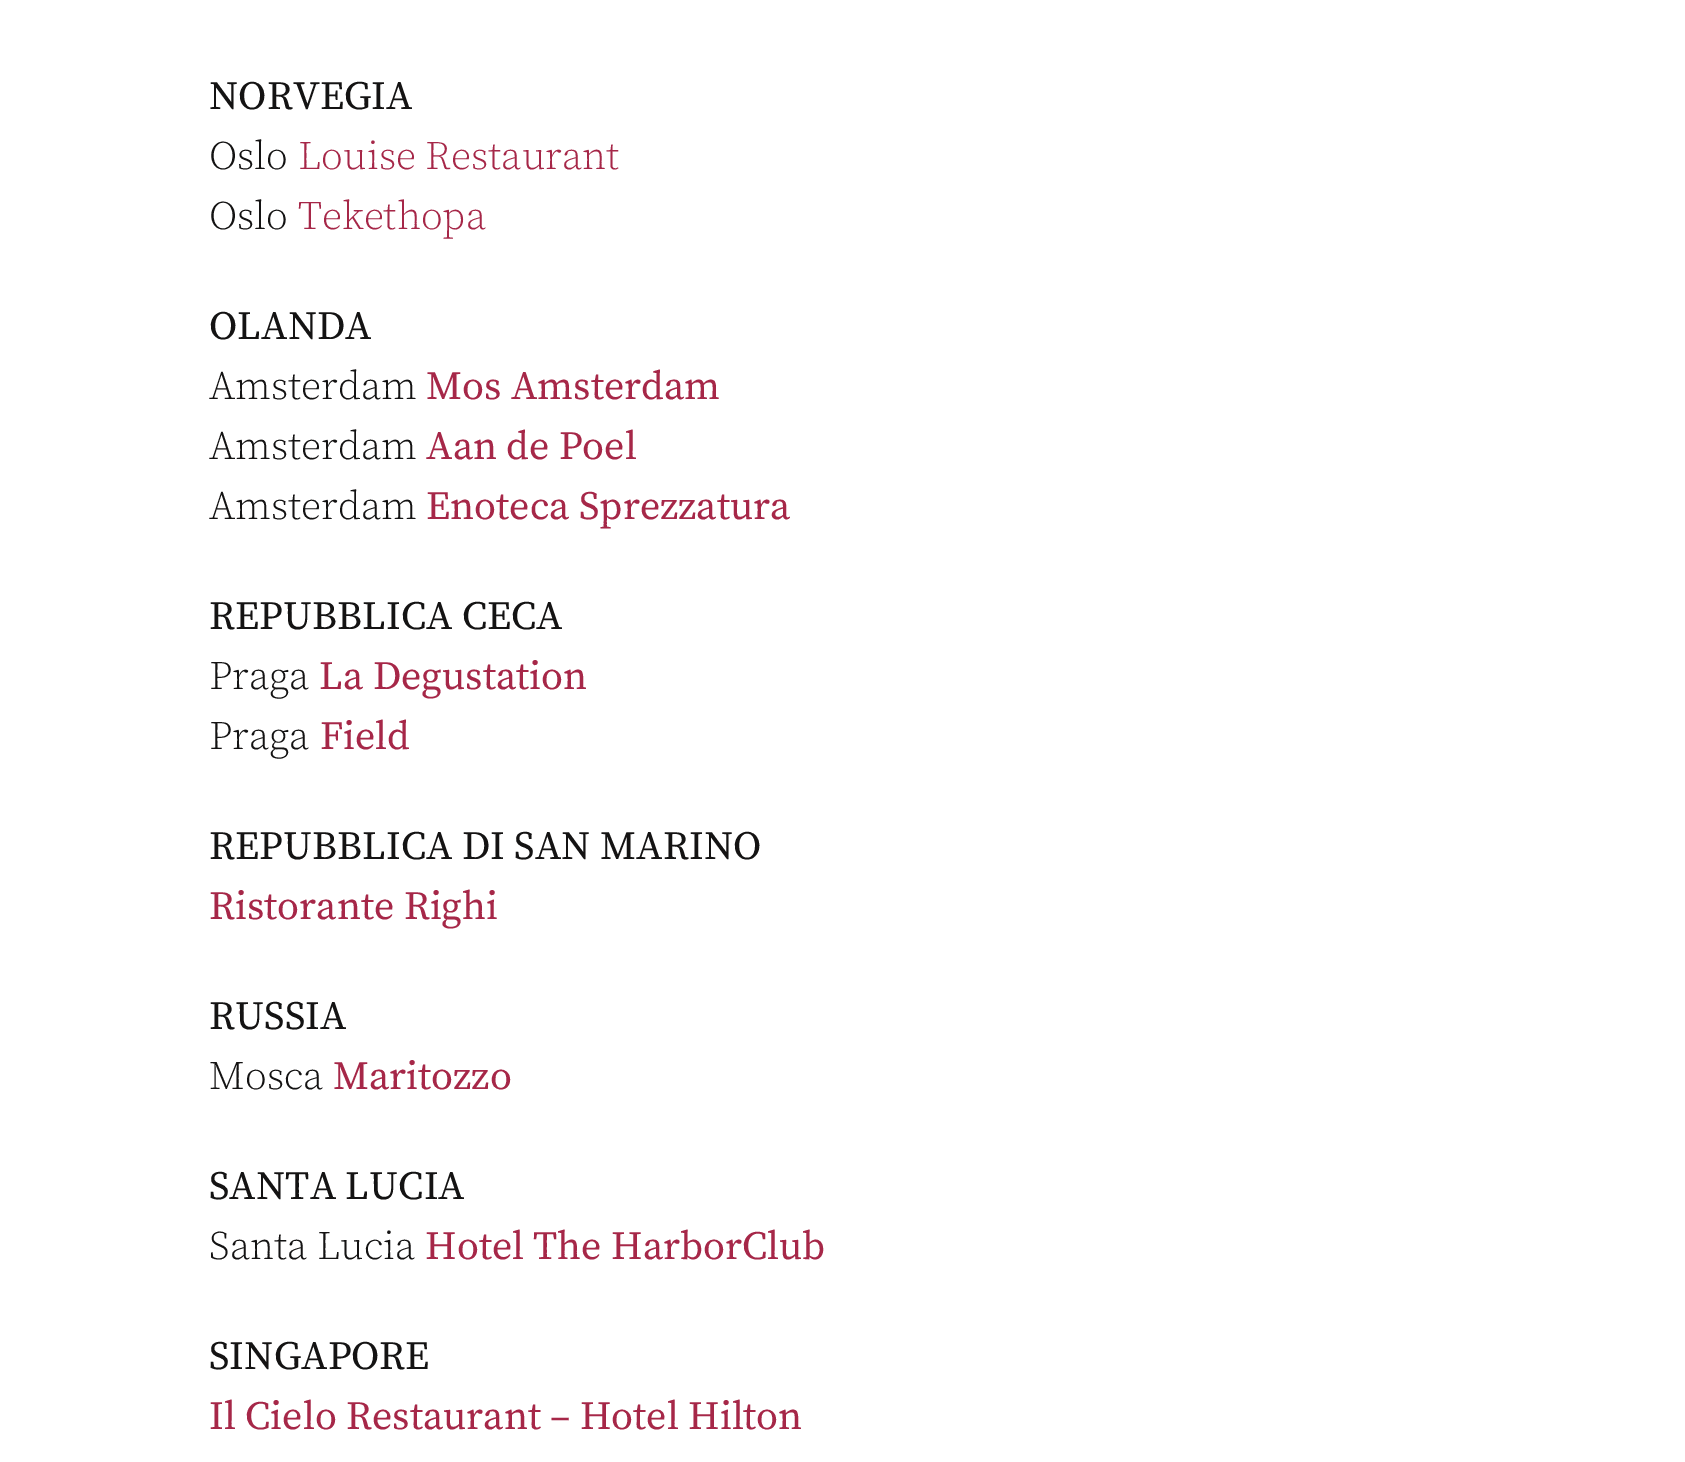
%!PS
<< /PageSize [1685 1462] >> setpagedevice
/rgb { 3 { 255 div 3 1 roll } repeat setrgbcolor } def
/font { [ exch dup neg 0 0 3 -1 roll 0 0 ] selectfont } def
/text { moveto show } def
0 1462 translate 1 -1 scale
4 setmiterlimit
255 255 255 rgb
0 0 1685 1462 rectfill
/SourceSerifPro-Regular 40 font
20 19 19 rgb
(NORVEGIA) 209 109 text
/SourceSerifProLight-Light 40 font
(Oslo) 209 169 text
166 39 72 rgb
(Louise Restaurant) 298 169 text
20 19 19 rgb
(Oslo) 209 229 text
166 39 72 rgb
(Tekethopa) 298 229 text
/SourceSerifPro-Regular 40 font
20 19 19 rgb
(OLANDA) 209 339 text
/SourceSerifProLight-Light 40 font
(Amsterdam) 209 399 text
/SourceSerifPro-Regular 40 font
166 39 72 rgb
(Mos Amsterdam) 426 399 text
/SourceSerifProLight-Light 40 font
20 19 19 rgb
(Amsterdam) 209 459 text
/SourceSerifPro-Regular 40 font
166 39 72 rgb
(Aan de Poel) 426 459 text
/SourceSerifProLight-Light 40 font
20 19 19 rgb
(Amsterdam) 209 519 text
/SourceSerifPro-Regular 40 font
166 39 72 rgb
(Enoteca Sprezzatura) 426 519 text
20 19 19 rgb
(REPUBBLICA CECA) 209 629 text
/SourceSerifProLight-Light 40 font
(Praga) 209 689 text
/SourceSerifPro-Regular 40 font
166 39 72 rgb
(La Degustation) 319 689 text
/SourceSerifProLight-Light 40 font
20 19 19 rgb
(Praga) 209 749 text
/SourceSerifPro-Regular 40 font
166 39 72 rgb
(Field) 320 749 text
20 19 19 rgb
(REPUBBLICA DI SAN MARINO) 209 859 text
166 39 72 rgb
(Ristorante Righi) 209 919 text
20 19 19 rgb
(RUSSIA) 209 1029 text
/SourceSerifProLight-Light 40 font
(Mosca) 209 1089 text
/SourceSerifPro-Regular 40 font
166 39 72 rgb
(Maritozzo) 333 1089 text
20 19 19 rgb
(SANTA LUCIA) 209 1199 text
/SourceSerifProLight-Light 40 font
(Santa Lucia) 209 1259 text
/SourceSerifPro-Regular 40 font
166 39 72 rgb
(Hotel The HarborClub) 425 1259 text
20 19 19 rgb
(SINGAPORE) 209 1369 text
166 39 72 rgb
(Il Cielo Restaurant – Hotel Hilton) 209 1429 text
showpage
